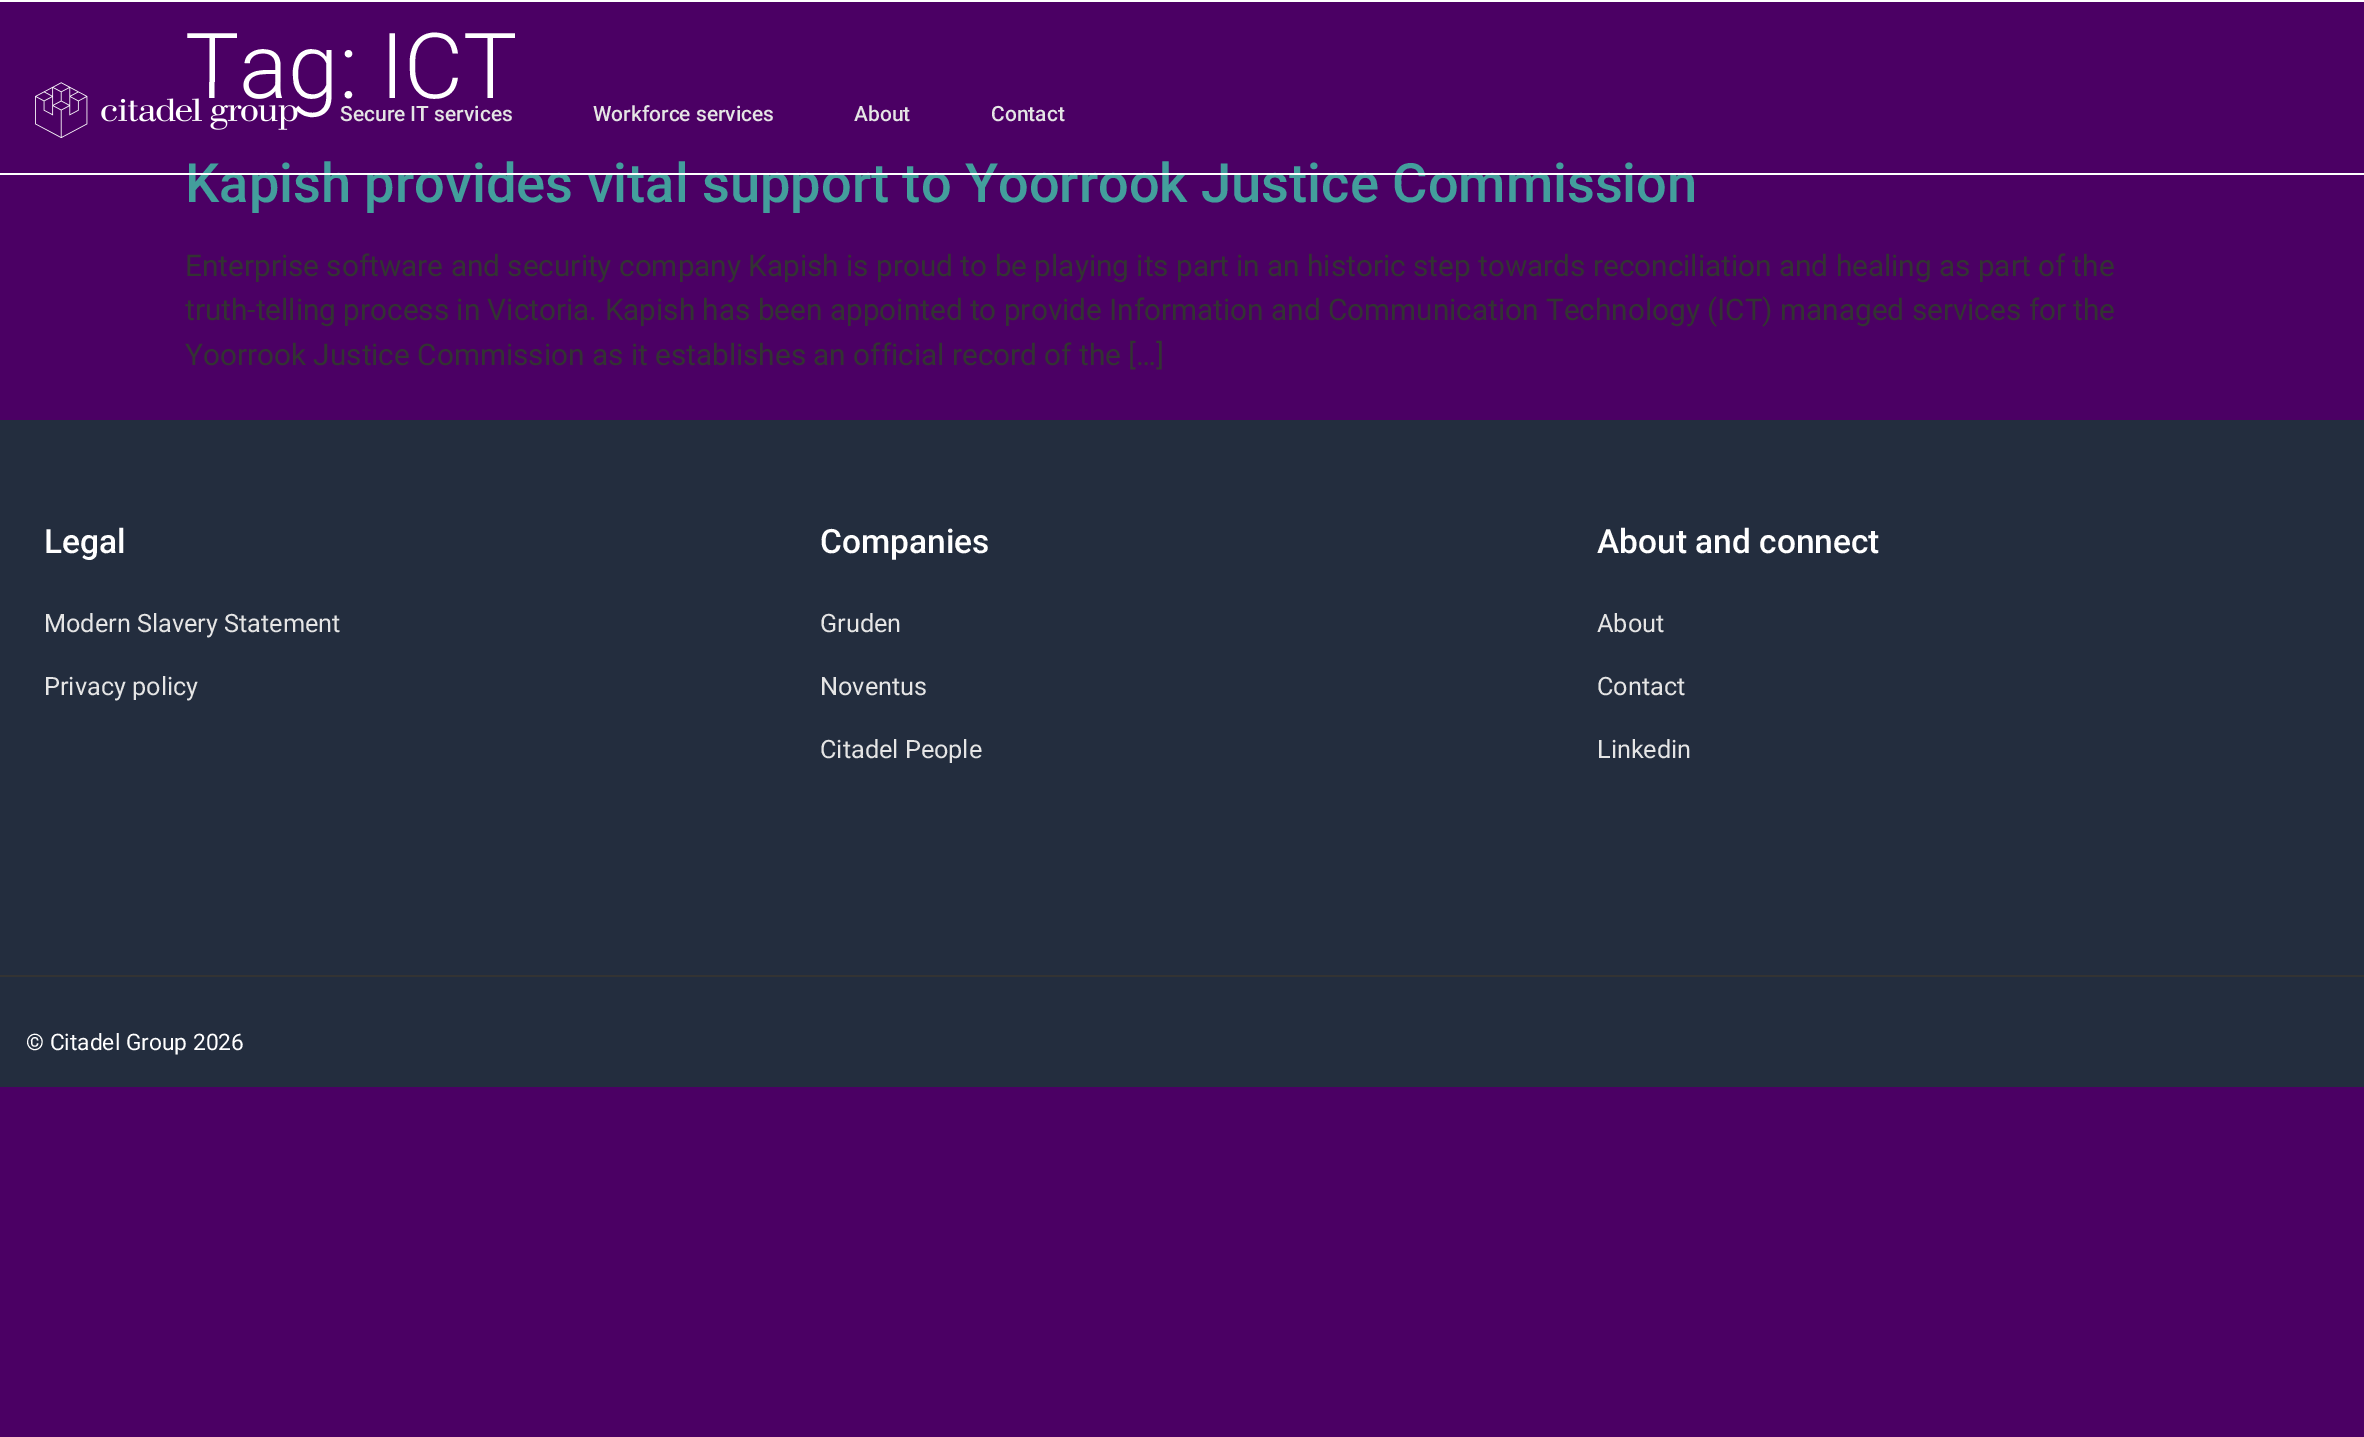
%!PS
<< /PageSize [2364 1437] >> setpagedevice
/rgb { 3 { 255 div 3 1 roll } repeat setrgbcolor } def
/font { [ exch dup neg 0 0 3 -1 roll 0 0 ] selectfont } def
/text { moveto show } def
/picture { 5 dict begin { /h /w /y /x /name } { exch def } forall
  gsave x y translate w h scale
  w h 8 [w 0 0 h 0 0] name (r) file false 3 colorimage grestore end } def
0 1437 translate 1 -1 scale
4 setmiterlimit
75 0 100 rgb
0 0 2364 1437 rectfill
255 255 255 rgb
0 0 2364 2 rectfill
35 45 62 rgb
0 420 2364 555 rectfill
0 977 2364 110 rectfill
51 51 51 rgb
0 975 2364 2 rectfill
/Roboto-Light 91 font
255 255 255 rgb
(Tag: ICT) 185 98 text
/Roboto-Medium 54.25 font
67 158 156 rgb
(Kapish provides vital support to Yoorrook Justice Commission) 185 202 text
/Roboto-Regular 29.75 font
51 51 51 rgb
(Enterprise software and security company Kapish is proud to be playing its part in an historic step towards reconciliation and healing as part of the) 185 276 text
(truth-telling process in Victoria. Kapish has been appointed to provide Information and Communication Technology \(ICT\) managed services for the) 185 320 text
(Yoorrook Justice Commission as it establishes an official record of the […]) 185 365 text
255 255 255 rgb
0 173 2364 2 rectfill
(img_01.rgb) 35 82 263 56 picture
/Roboto-Medium 21 font
229 229 229 rgb
(Secure IT services) 340 121 text
(Workforce services) 593 121 text
(About) 854 121 text
(Contact) 991 121 text
/Roboto-Medium 33.5 font
255 255 255 rgb
(Legal) 44 553 text
/Roboto-Regular 25.25 font
229 229 229 rgb
(Modern Slavery Statement) 44 632 text
(Privacy policy) 44 695 text
/Roboto-Medium 33.5 font
255 255 255 rgb
(Companies) 820 553 text
/Roboto-Regular 25.25 font
229 229 229 rgb
(Gruden) 820 632 text
(Noventus) 820 695 text
(Citadel People) 820 758 text
/Roboto-Medium 33.5 font
255 255 255 rgb
(About and connect) 1597 553 text
/Roboto-Regular 25.25 font
229 229 229 rgb
(About) 1597 632 text
(Contact) 1597 695 text
(Linkedin) 1597 758 text
/Roboto-Regular 22.75 font
255 255 255 rgb
(© Citadel Group 2026) 26 1050 text
showpage
